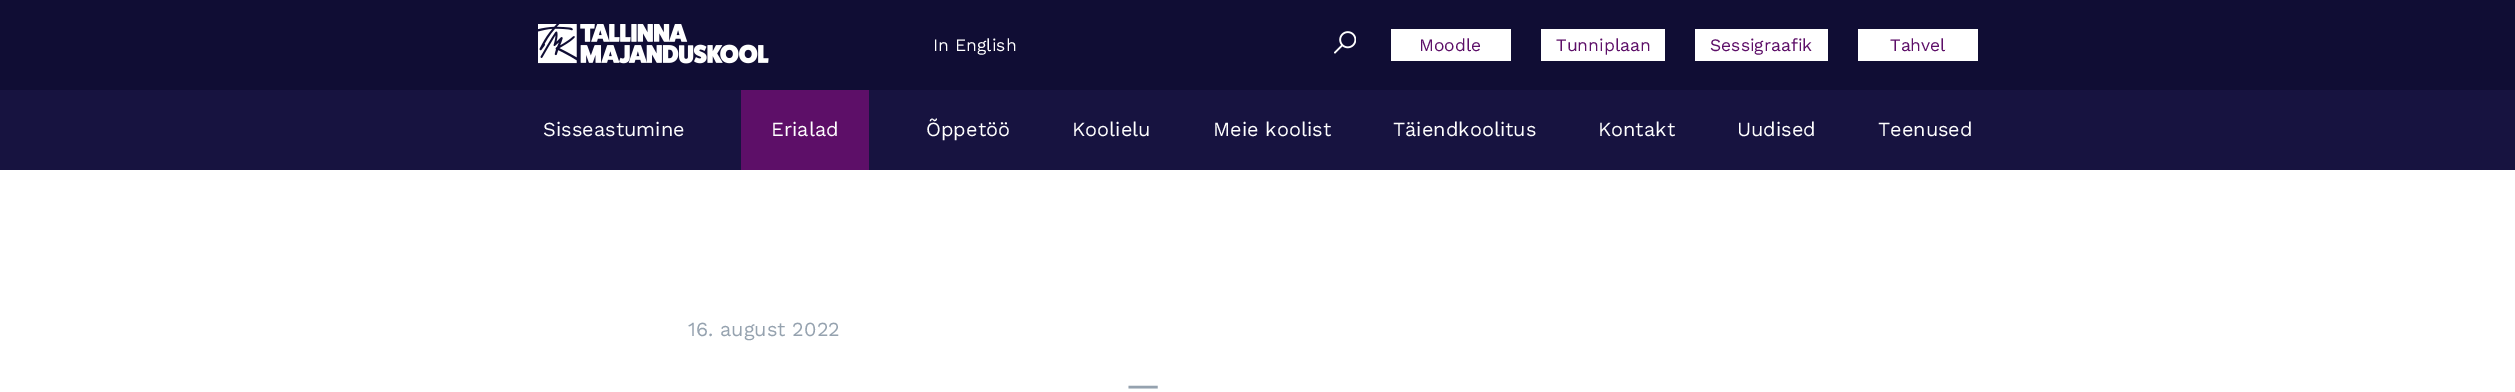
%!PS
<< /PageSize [2515 392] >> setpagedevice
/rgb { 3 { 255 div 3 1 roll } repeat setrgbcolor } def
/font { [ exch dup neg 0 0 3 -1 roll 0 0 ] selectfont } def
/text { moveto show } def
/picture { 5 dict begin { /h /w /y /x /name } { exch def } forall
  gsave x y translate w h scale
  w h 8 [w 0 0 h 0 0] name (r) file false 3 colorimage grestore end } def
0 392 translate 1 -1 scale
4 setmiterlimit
255 255 255 rgb
0 0 2515 392 rectfill
16 13 52 rgb
0 0 2515 90 rectfill
(img_01.rgb) 538 24 231 40 picture
(img_02.rgb) 1334 31 22 23 picture
255 255 255 rgb
1391 29 120 32 rectfill
1541 29 124 32 rectfill
1695 29 133 32 rectfill
1858 29 120 32 rectfill
23 19 64 rgb
0 90 2515 80 rectfill
93 15 104 rgb
741 90 128 80 rectfill
/WorkSans-Regular 17.5 font
255 255 255 rgb
(In English) 933 51 text
93 15 104 rgb
(Moodle) 1419 51 text
(Tunniplaan) 1556 51 text
(Sessigraafik) 1710 51 text
(Tahvel) 1890 51 text
/WorkSans-Regular 20 font
255 255 255 rgb
(Sisseastumine) 543 136 text
(Erialad) 771 136 text
(Õppetöö) 926 136 text
(Koolielu) 1072 136 text
(Meie koolist) 1213 136 text
(Täiendkoolitus) 1393 136 text
(Kontakt) 1598 136 text
(Uudised) 1737 136 text
(Teenused) 1878 136 text
149 162 175 rgb
(16. august 2022) 688 336 text
/WorkSans-Light 60 font
(–) 1124 403 text
showpage
